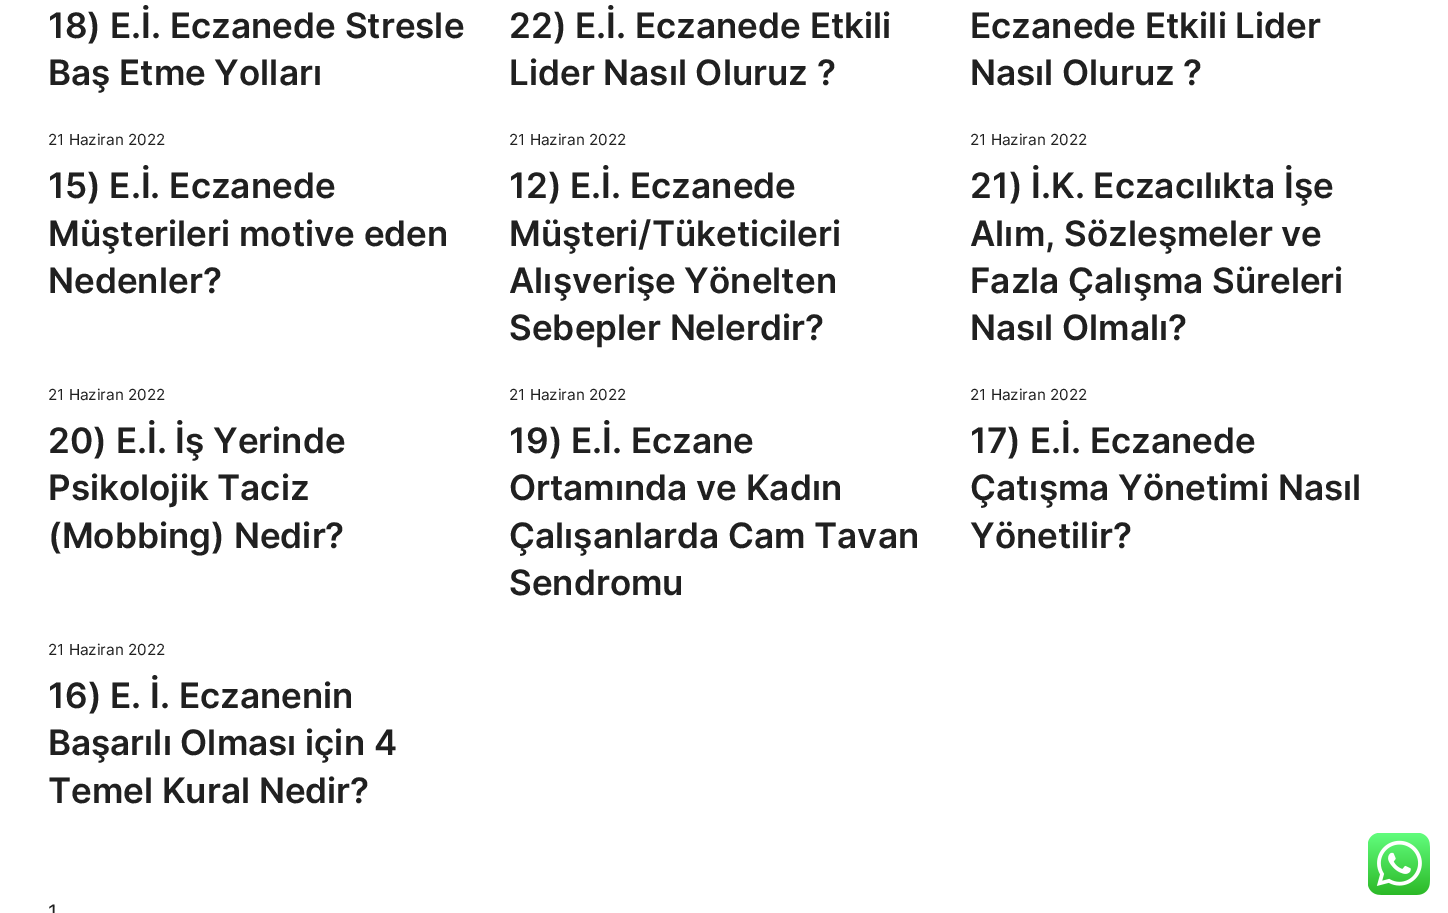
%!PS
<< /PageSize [1448 913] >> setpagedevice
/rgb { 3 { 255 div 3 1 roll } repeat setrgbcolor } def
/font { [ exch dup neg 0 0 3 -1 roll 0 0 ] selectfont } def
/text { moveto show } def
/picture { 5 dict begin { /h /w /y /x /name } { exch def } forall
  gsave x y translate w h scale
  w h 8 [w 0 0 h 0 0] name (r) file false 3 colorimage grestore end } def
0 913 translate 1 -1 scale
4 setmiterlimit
255 255 255 rgb
0 0 1448 913 rectfill
(img_01.rgb) 1368 833 62 62 picture
/Inter-SemiBold 35 font
32 32 32 rgb
(18\) E.İ. Eczanede Stresle) 48 38 text
(Baş Etme Yolları) 48 85 text
(22\) E.İ. Eczanede Etkili) 509 38 text
(Lider Nasıl Oluruz ?) 509 85 text
(Eczanede Etkili Lider) 970 38 text
(Nasıl Oluruz ?) 970 85 text
/Inter-Regular 15.25 font
(21 Haziran 2022) 48 145 text
/Inter-SemiBold 35 font
(15\) E.İ. Eczanede) 48 198 text
(Müşterileri motive eden) 48 246 text
(Nedenler?) 48 293 text
/Inter-Regular 15.25 font
(21 Haziran 2022) 509 145 text
/Inter-SemiBold 35 font
(12\) E.İ. Eczanede) 509 198 text
(Müşteri/Tüketicileri) 509 246 text
(Alışverişe Yönelten) 509 293 text
(Sebepler Nelerdir?) 509 340 text
/Inter-Regular 15.25 font
(21 Haziran 2022) 970 145 text
/Inter-SemiBold 35 font
(21\) İ.K. Eczacılıkta İşe) 970 198 text
(Alım, Sözleşmeler ve) 970 246 text
(Fazla Çalışma Süreleri) 970 293 text
(Nasıl Olmalı?) 970 340 text
/Inter-Regular 15.25 font
(21 Haziran 2022) 48 400 text
/Inter-SemiBold 35 font
(20\) E.İ. İş Yerinde) 48 453 text
(Psikolojik Taciz) 48 500 text
(\(Mobbing\) Nedir?) 48 548 text
/Inter-Regular 15.25 font
(21 Haziran 2022) 509 400 text
/Inter-SemiBold 35 font
(19\) E.İ. Eczane) 509 453 text
(Ortamında ve Kadın) 509 500 text
(Çalışanlarda Cam Tavan) 509 548 text
(Sendromu) 509 595 text
/Inter-Regular 15.25 font
(21 Haziran 2022) 970 400 text
/Inter-SemiBold 35 font
(17\) E.İ. Eczanede) 970 453 text
(Çatışma Yönetimi Nasıl) 970 500 text
(Yönetilir?) 970 548 text
/Inter-Regular 15.25 font
(21 Haziran 2022) 48 655 text
/Inter-SemiBold 35 font
(16\) E. İ. Eczanenin) 48 708 text
(Başarılı Olması için 4) 48 755 text
(Temel Kural Nedir?) 48 803 text
/Inter-Regular 20 font
(1) 48 919 text
showpage
